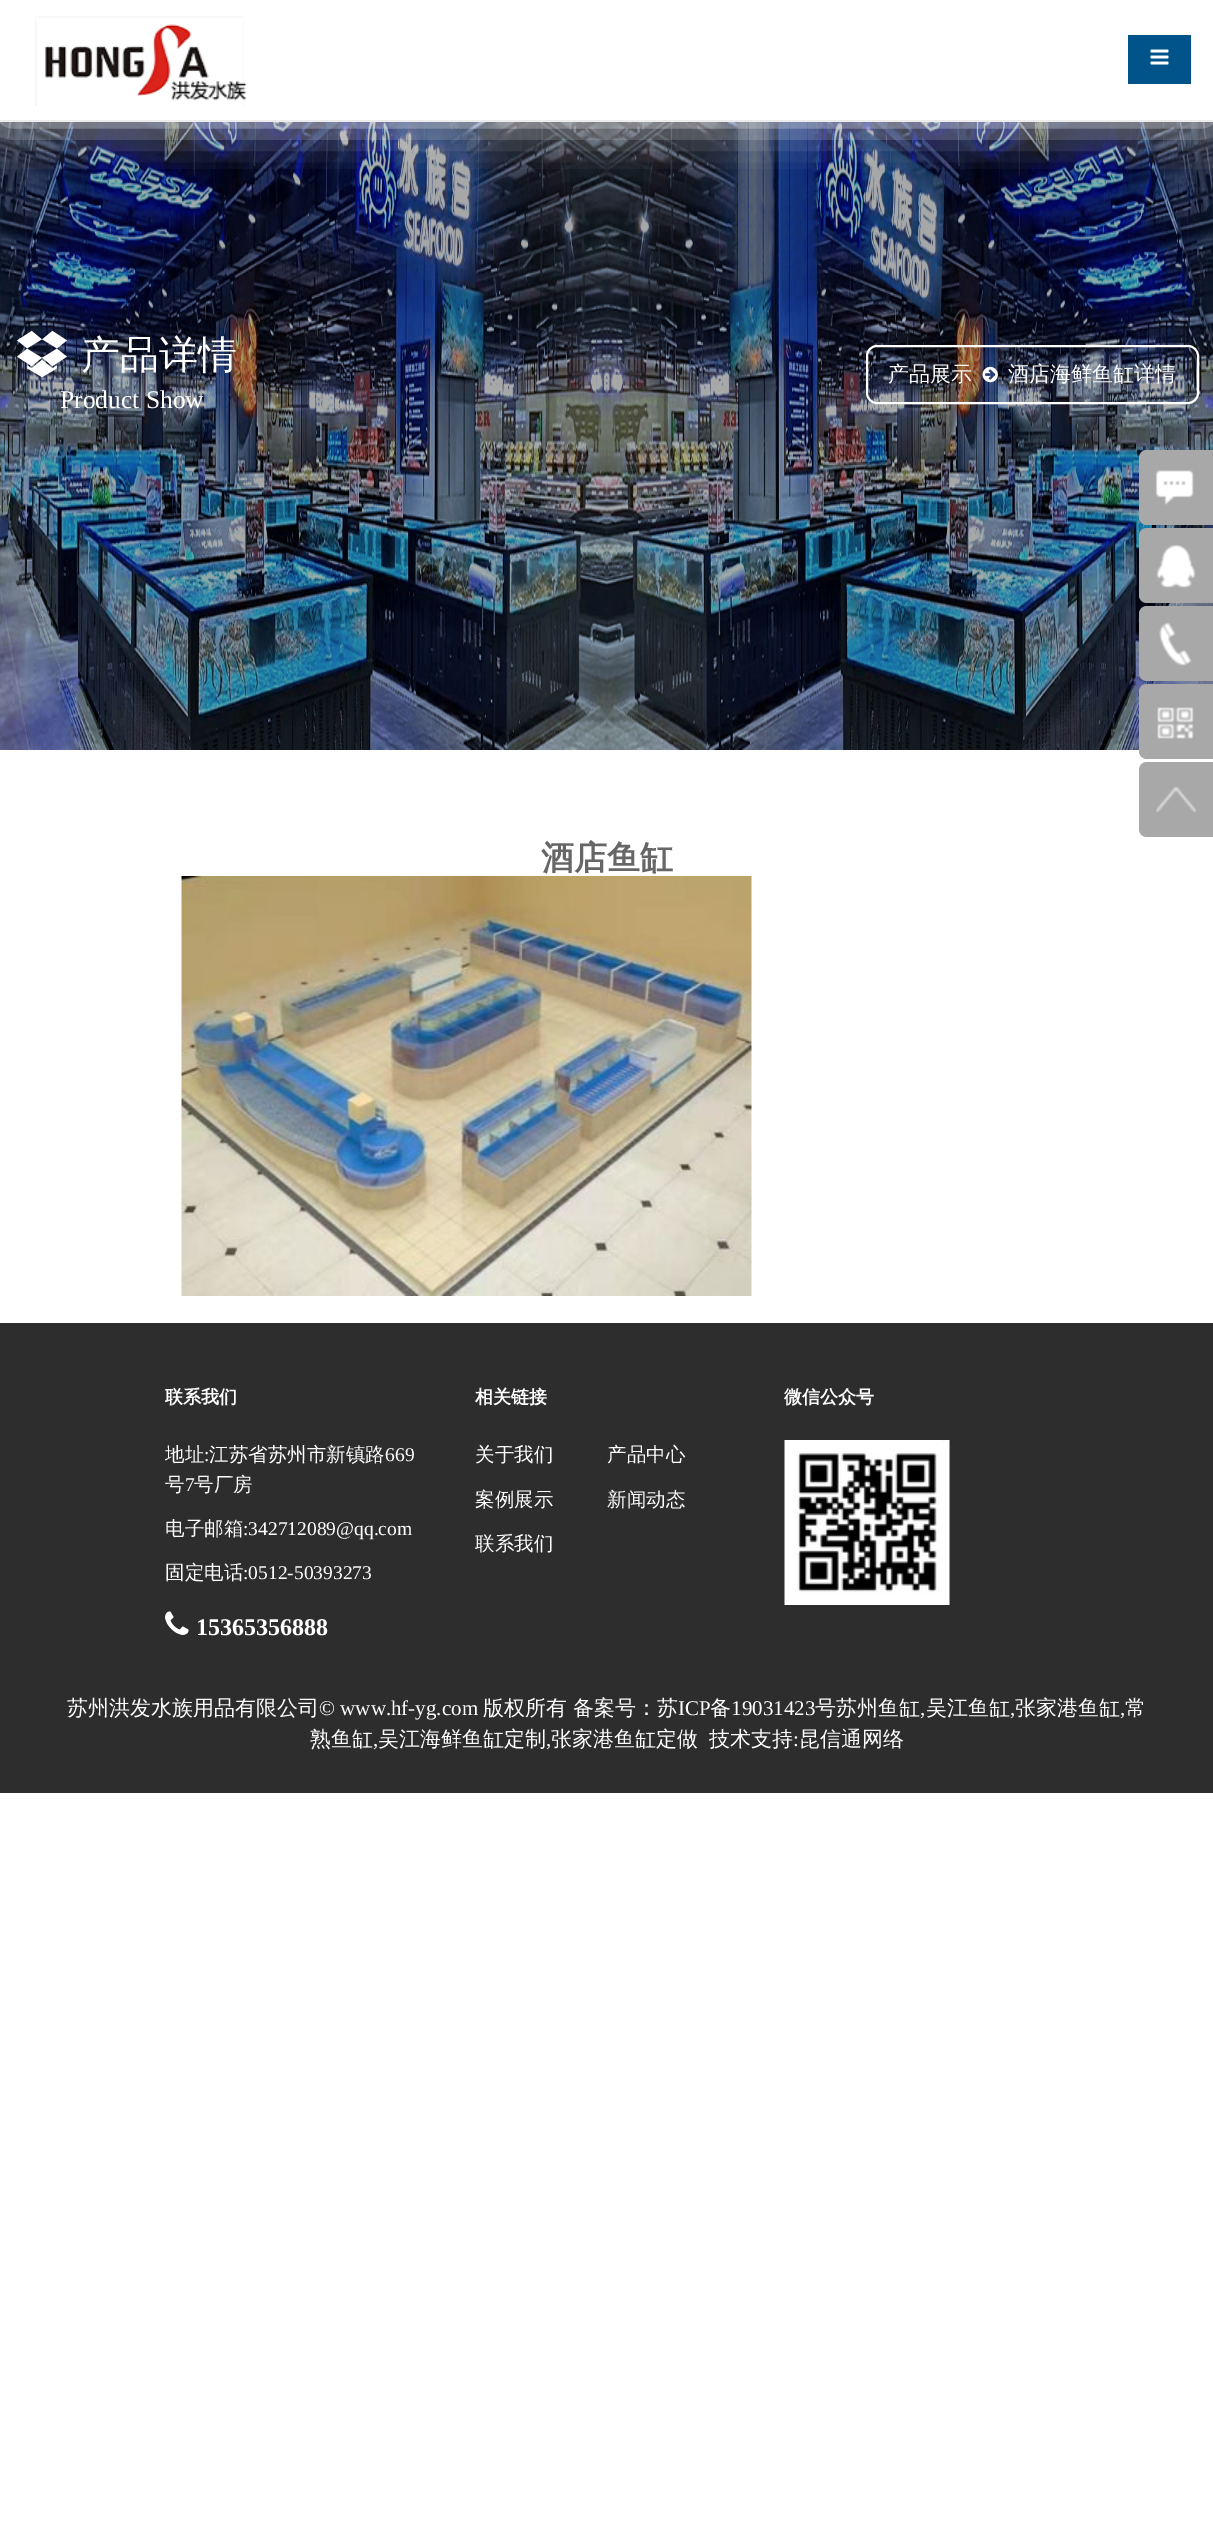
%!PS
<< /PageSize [1213 2533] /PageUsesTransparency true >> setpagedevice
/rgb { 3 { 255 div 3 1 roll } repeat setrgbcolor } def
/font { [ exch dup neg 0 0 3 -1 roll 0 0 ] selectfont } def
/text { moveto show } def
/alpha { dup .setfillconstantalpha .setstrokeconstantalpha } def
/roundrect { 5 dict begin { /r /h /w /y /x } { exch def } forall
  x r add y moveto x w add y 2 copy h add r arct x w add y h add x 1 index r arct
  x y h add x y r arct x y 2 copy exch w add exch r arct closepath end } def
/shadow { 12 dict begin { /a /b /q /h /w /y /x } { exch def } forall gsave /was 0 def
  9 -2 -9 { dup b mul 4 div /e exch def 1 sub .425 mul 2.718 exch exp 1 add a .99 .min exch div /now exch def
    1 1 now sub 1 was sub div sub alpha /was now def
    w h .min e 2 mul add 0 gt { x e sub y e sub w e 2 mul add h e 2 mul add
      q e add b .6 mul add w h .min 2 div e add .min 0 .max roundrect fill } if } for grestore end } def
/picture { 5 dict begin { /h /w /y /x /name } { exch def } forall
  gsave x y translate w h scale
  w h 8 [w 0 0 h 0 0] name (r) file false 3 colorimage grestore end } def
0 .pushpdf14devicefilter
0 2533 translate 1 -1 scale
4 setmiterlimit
255 255 255 rgb
0 0 1213 2533 rectfill
(img_03.rgb) 0 122 1213 628 picture
gsave
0 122 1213 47 rectclip
236 236 236 rgb
0 2 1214 121 0 22.5 1 shadow
grestore
236 236 236 rgb
0 120 1213 2 rectfill
(img_01.rgb) 35 16 212 91 picture
0 84 137 rgb
1128 35 63 49 rectfill
(img_02.rgb) 1150 49 19 16 picture
(img_04.rgb) 17 330 50 48 picture
255 255 255 rgb
2 setlinewidth
867 346 331 57 10 roundrect stroke
(img_05.rgb) 982 366 16 17 picture
204 204 204 rgb
1140 456 37 19 5 roundrect stroke
168 168 168 rgb
1147 450 moveto 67 0 rlineto 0 75 rlineto -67 0 rlineto -4.5 0 -8 -3.5 -8 -8 rcurveto 0 -59 rlineto 0 -4.5 3.5 -8 8 -8 rcurveto closepath fill
(img_06.rgb) 1155 470 39 35 picture
1147 528 moveto 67 0 rlineto 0 75 rlineto -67 0 rlineto -4.5 0 -8 -3.5 -8 -8 rcurveto 0 -59 rlineto 0 -4.5 3.5 -8 8 -8 rcurveto closepath fill
(img_07.rgb) 1156 544 40 44 picture
1147 606 moveto 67 0 rlineto 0 75 rlineto -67 0 rlineto -4.5 0 -8 -3.5 -8 -8 rcurveto 0 -59 rlineto 0 -4.5 3.5 -8 8 -8 rcurveto closepath fill
(img_08.rgb) 1159 622 33 44 picture
1147 684 moveto 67 0 rlineto 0 75 rlineto -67 0 rlineto -4.5 0 -8 -3.5 -8 -8 rcurveto 0 -59 rlineto 0 -4.5 3.5 -8 8 -8 rcurveto closepath fill
(img_09.rgb) 1157 707 37 32 picture
1147 762 moveto 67 0 rlineto 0 75 rlineto -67 0 rlineto -4.5 0 -8 -3.5 -8 -8 rcurveto 0 -59 rlineto 0 -4.5 3.5 -8 8 -8 rcurveto closepath fill
(img_10.rgb) 1156 787 41 26 picture
(img_11.rgb) 181 876 571 420 picture
45 45 45 rgb
0 1323 1213 470 rectfill
(img_12.rgb) 165 1611 24 24 picture
(img_13.rgb) 784 1440 166 165 picture
/WenQuanYiZenHei-Medium 39 font
255 255 255 rgb
(产品详情) 81 368 text
/LiberationSerif-Regular 25.5 font
(Product Show) 60 408 text
/WenQuanYiZenHei-Medium 21 font
(产品展示) 888 381 text
(酒店海鲜鱼缸详情) 1008 381 text
/WenQuanYiZenHei-Bold 33 font
102 102 102 rgb
(酒店鱼缸) 541 869 text
/WenQuanYiZenHei-Bold 18 font
255 255 255 rgb
(联系我们) 165 1403 text
/WenQuanYiZenHei-Medium 19.5 font
(地址) 165 1461 text
/LiberationSerif-Regular 19.5 font
(:) 204 1461 text
/WenQuanYiZenHei-Medium 19.5 font
(江苏省苏州市新镇路) 209 1461 text
/LiberationSerif-Regular 19.5 font
(669) 385 1461 text
/WenQuanYiZenHei-Medium 19.5 font
(号) 165 1491 text
/LiberationSerif-Regular 19.5 font
(7) 185 1491 text
/WenQuanYiZenHei-Medium 19.5 font
(号厂房) 194 1491 text
(电子邮箱) 165 1535 text
/LiberationSerif-Regular 19.5 font
(:342712089@qq.com) 243 1535 text
/WenQuanYiZenHei-Medium 19.5 font
(固定电话) 165 1579 text
/LiberationSerif-Regular 19.5 font
(:0512-50393273) 243 1579 text
/LiberationSerif-Bold 24 font
(15365356888) 196 1635 text
/WenQuanYiZenHei-Bold 18 font
(相关链接) 475 1403 text
/WenQuanYiZenHei-Medium 19.5 font
(关于我们) 475 1461 text
(产品中心) 607 1461 text
(案例展示) 475 1506 text
(新闻动态) 607 1506 text
(联系我们) 475 1550 text
/WenQuanYiZenHei-Bold 18 font
(微信公众号) 784 1403 text
/WenQuanYiZenHei-Medium 21 font
(苏州洪发水族用品有限公司) 67 1715 text
/LiberationSerif-Regular 21 font
(© www.hf-yg.com) 319 1715 text
/WenQuanYiZenHei-Medium 21 font
(版权所有) 483 1715 text
(备案号：苏) 573 1715 text
/LiberationSerif-Regular 21 font
(ICP) 678 1715 text
/WenQuanYiZenHei-Medium 21 font
(备) 710 1715 text
/LiberationSerif-Regular 21 font
(19031423) 731 1715 text
/WenQuanYiZenHei-Medium 21 font
(号苏州鱼缸) 815 1715 text
/LiberationSerif-Regular 21 font
(,) 920 1715 text
/WenQuanYiZenHei-Medium 21 font
(吴江鱼缸) 926 1715 text
/LiberationSerif-Regular 21 font
(,) 1010 1715 text
/WenQuanYiZenHei-Medium 21 font
(张家港鱼缸) 1015 1715 text
/LiberationSerif-Regular 21 font
(,) 1120 1715 text
/WenQuanYiZenHei-Medium 21 font
(常) 1125 1715 text
(熟鱼缸) 310 1746 text
/LiberationSerif-Regular 21 font
(,) 373 1746 text
/WenQuanYiZenHei-Medium 21 font
(吴江海鲜鱼缸定制) 378 1746 text
/LiberationSerif-Regular 21 font
(,) 546 1746 text
/WenQuanYiZenHei-Medium 21 font
(张家港鱼缸定做) 551 1746 text
(技术支持) 709 1746 text
/LiberationSerif-Regular 21 font
(:) 793 1746 text
/WenQuanYiZenHei-Medium 21 font
(昆信通网络) 799 1746 text
.poppdf14devicefilter showpage
